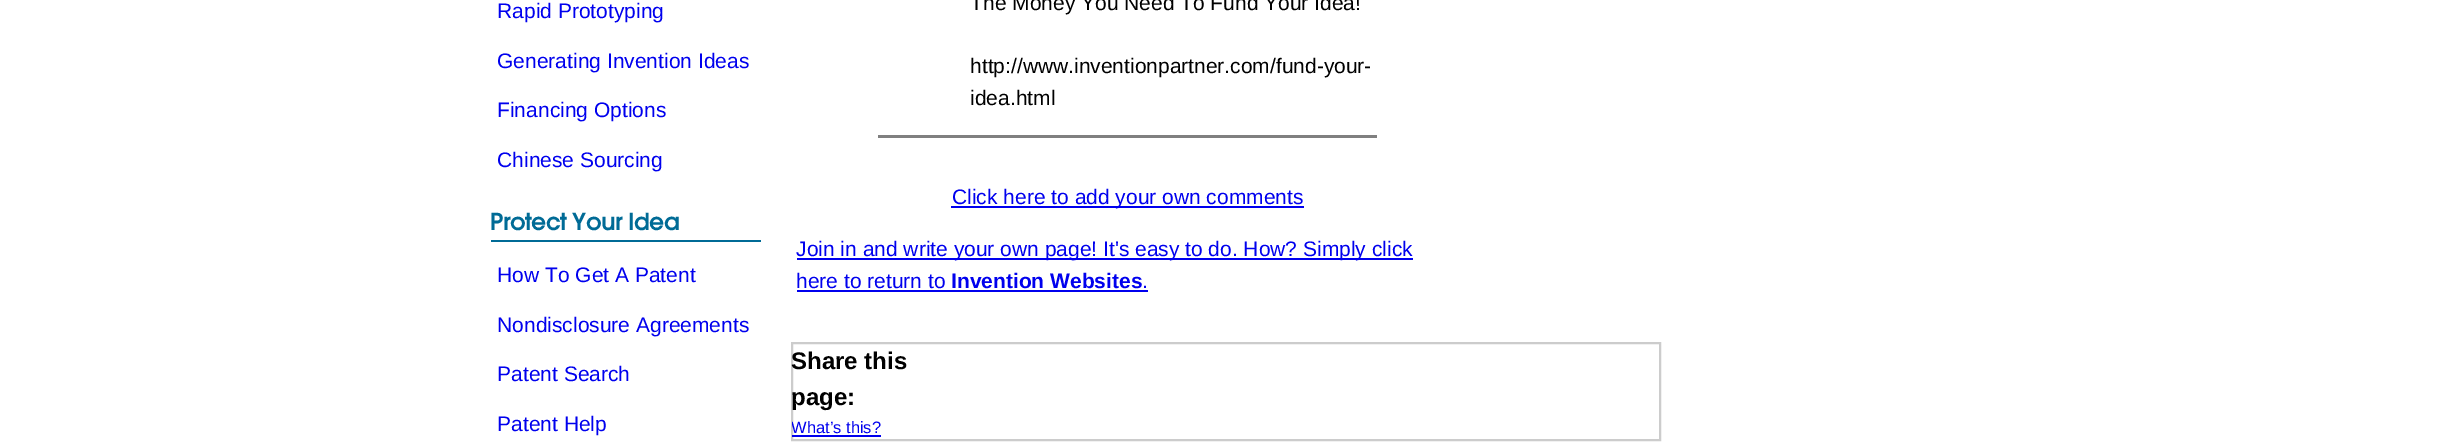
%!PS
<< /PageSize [2449 445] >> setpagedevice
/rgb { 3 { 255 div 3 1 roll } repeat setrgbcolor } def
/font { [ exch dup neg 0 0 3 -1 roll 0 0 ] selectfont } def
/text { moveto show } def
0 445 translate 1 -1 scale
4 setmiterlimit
255 255 255 rgb
0 0 2449 445 rectfill
0 107 150 rgb
491 240 270 2 rectfill
128 128 128 rgb
878 135 499 3 rectfill
0 0 238 rgb
951 206 353 2 rectfill
797 258 616 2 rectfill
797 290 351 2 rectfill
204 204 204 rgb
2 setlinewidth
792 343 868 97 rectstroke
0 0 238 rgb
792 435 89 2 rectfill
/LiberationSans-Regular 21 font
(Rapid Prototyping) 497 18 text
(Generating Invention Ideas) 497 68 text
(Financing Options) 497 117 text
(Chinese Sourcing) 497 167 text
/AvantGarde-Bold 22.5 font
0 107 150 rgb
(Protect Your Idea) 490 230 text
/LiberationSans-Regular 21 font
0 0 238 rgb
(How To Get A Patent) 497 282 text
(Nondisclosure Agreements) 497 332 text
(Patent Search) 497 381 text
(Patent Help) 497 431 text
0 0 0 rgb
(The Money You Need To Fund Your Idea!) 970 10 text
(http://www.inventionpartner.com/fund-your-) 970 73 text
(idea.html) 970 105 text
0 0 238 rgb
(Click here to add your own comments) 952 204 text
(Join in and write your own page! It's easy to do. How? Simply click) 796 256 text
(here to return to) 796 288 text
/LiberationSans-Bold 21 font
(Invention Websites) 951 288 text
/LiberationSans-Regular 21 font
(.) 1142 288 text
/LiberationSans-Bold 24 font
0 0 0 rgb
(Share this) 791 369 text
(page:) 791 405 text
gsave
792 344 867 96 rectclip
/LiberationSans-Regular 16.5 font
0 0 238 rgb
(What’s this?) 791 433 text
grestore
showpage
